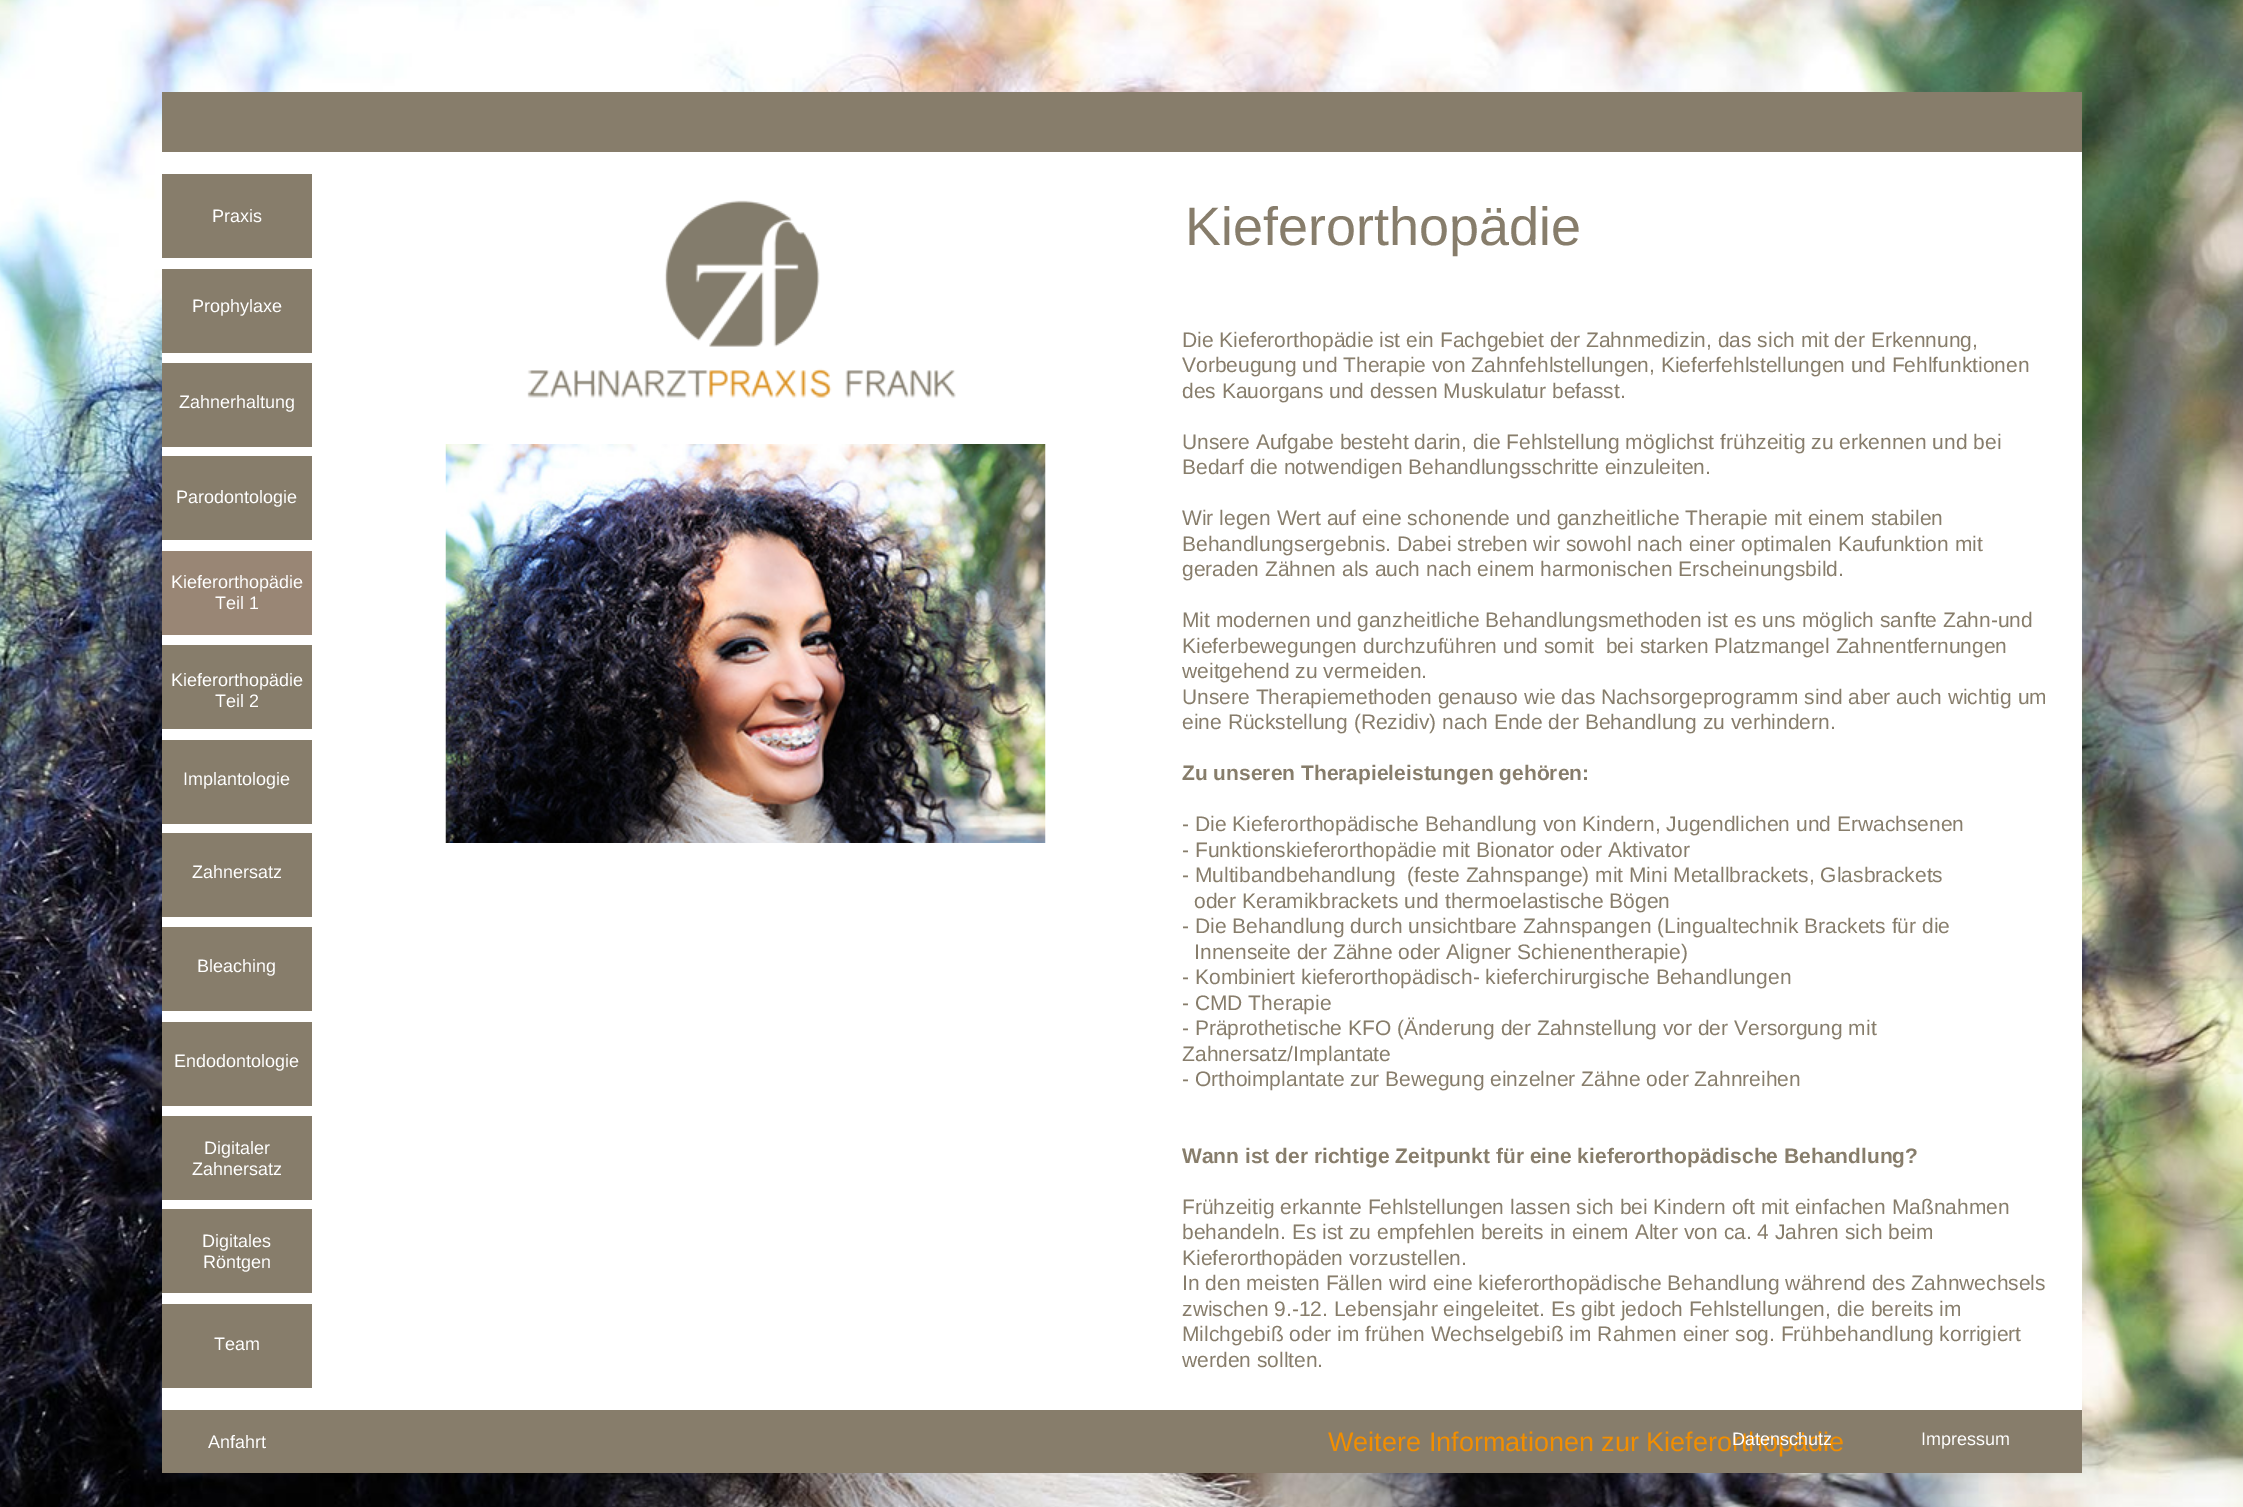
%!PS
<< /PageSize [2243 1507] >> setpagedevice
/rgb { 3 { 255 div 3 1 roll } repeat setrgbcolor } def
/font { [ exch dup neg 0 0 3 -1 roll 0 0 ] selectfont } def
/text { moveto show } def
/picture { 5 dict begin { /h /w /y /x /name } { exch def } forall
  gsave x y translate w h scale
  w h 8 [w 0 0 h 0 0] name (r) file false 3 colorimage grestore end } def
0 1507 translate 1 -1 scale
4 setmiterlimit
255 255 255 rgb
0 0 2243 1507 rectfill
(img_01.rgb) 0 0 2243 1507 picture
135 125 107 rgb
162 92 1920 60 rectfill
255 255 255 rgb
162 152 1920 1258 rectfill
(img_02.rgb) 527 200 429 198 picture
135 125 107 rgb
162 174 150 84 rectfill
162 269 150 84 rectfill
162 363 150 84 rectfill
162 456 150 84 rectfill
153 134 117 rgb
162 551 150 84 rectfill
135 125 107 rgb
162 645 150 84 rectfill
162 740 150 84 rectfill
162 833 150 84 rectfill
162 927 150 84 rectfill
162 1022 150 84 rectfill
162 1116 150 84 rectfill
162 1209 150 84 rectfill
162 1304 150 84 rectfill
162 1410 1920 63 rectfill
(img_03.rgb) 445 444 601 399 picture
/LiberationSans-Regular 54 font
(Kieferorthopädie) 1185 245 text
/LiberationSans-Regular 18 font
255 255 255 rgb
(Praxis) 212 222 text
(Prophylaxe) 192 312 text
(Zahnerhaltung) 179 408 text
(Parodontologie) 176 503 text
(Kieferorthopädie) 171 588 text
(Teil 1) 215 609 text
(Kieferorthopädie) 171 686 text
(Teil 2) 215 707 text
(Implantologie) 183 785 text
(Zahnersatz) 192 878 text
(Bleaching) 197 972 text
(Endodontologie) 174 1067 text
(Digitaler) 204 1154 text
(Zahnersatz) 192 1175 text
(Digitales) 202 1247 text
(Röntgen) 203 1268 text
(Team) 214 1350 text
/LiberationSans-Regular 27 font
242 142 0 rgb
(Weitere Informationen zur Kieferorthopädie) 1328 1451 text
/LiberationSans-Regular 21 font
135 125 107 rgb
(Die Kieferorthopädie ist ein Fachgebiet der Zahnmedizin, das sich mit der Erkennung,) 1182 347 text
(Vorbeugung und Therapie von Zahnfehlstellungen, Kieferfehlstellungen und Fehlfunktionen) 1182 372 text
(des Kauorgans und dessen Muskulatur befasst.) 1182 398 text
(Unsere Aufgabe besteht darin, die Fehlstellung möglichst frühzeitig zu erkennen und bei) 1182 449 text
(Bedarf die notwendigen Behandlungsschritte einzuleiten.) 1182 474 text
(Wir legen Wert auf eine schonende und ganzheitliche Therapie mit einem stabilen) 1182 525 text
(Behandlungsergebnis. Dabei streben wir sowohl nach einer optimalen Kaufunktion mit) 1182 551 text
(geraden Zähnen als auch nach einem harmonischen Erscheinungsbild.) 1182 576 text
(Mit modernen und ganzheitliche Behandlungsmethoden ist es uns möglich sanfte Zahn-und) 1182 627 text
(Kieferbewegungen durchzuführen und somit  bei starken Platzmangel Zahnentfernungen) 1182 653 text
(weitgehend zu vermeiden.) 1182 678 text
(Unsere Therapiemethoden genauso wie das Nachsorgeprogramm sind aber auch wichtig um) 1182 704 text
(eine Rückstellung \(Rezidiv\) nach Ende der Behandlung zu verhindern.) 1182 729 text
/LiberationSans-Bold 21 font
(Zu unseren Therapieleistungen gehören:) 1182 780 text
/LiberationSans-Regular 21 font
(- Die Kieferorthopädische Behandlung von Kindern, Jugendlichen und Erwachsenen) 1182 831 text
(- Funktionskieferorthopädie mit Bionator oder Aktivator) 1182 857 text
(- Multibandbehandlung  \(feste Zahnspange\) mit Mini Metallbrackets, Glasbrackets) 1182 882 text
(oder Keramikbrackets und thermoelastische Bögen) 1194 908 text
(- Die Behandlung durch unsichtbare Zahnspangen \(Lingualtechnik Brackets für die) 1182 933 text
(Innenseite der Zähne oder Aligner Schienentherapie\)) 1194 959 text
(- Kombiniert kieferorthopädisch- kieferchirurgische Behandlungen) 1182 984 text
(- CMD Therapie) 1182 1010 text
(- Präprothetische KFO \(Änderung der Zahnstellung vor der Versorgung mit) 1182 1035 text
(Zahnersatz/Implantate) 1182 1061 text
(- Orthoimplantate zur Bewegung einzelner Zähne oder Zahnreihen) 1182 1086 text
/LiberationSans-Bold 21 font
(Wann ist der richtige Zeitpunkt für eine kieferorthopädische Behandlung?) 1182 1163 text
/LiberationSans-Regular 21 font
(Frühzeitig erkannte Fehlstellungen lassen sich bei Kindern oft mit einfachen Maßnahmen) 1182 1214 text
(behandeln. Es ist zu empfehlen bereits in einem Alter von ca. 4 Jahren sich beim) 1182 1239 text
(Kieferorthopäden vorzustellen.) 1182 1265 text
(In den meisten Fällen wird eine kieferorthopädische Behandlung während des Zahnwechsels) 1182 1290 text
(zwischen 9.-12. Lebensjahr eingeleitet. Es gibt jedoch Fehlstellungen, die bereits im) 1182 1316 text
(Milchgebiß oder im frühen Wechselgebiß im Rahmen einer sog. Frühbehandlung korrigiert) 1182 1341 text
(werden sollten.) 1182 1367 text
/LiberationSans-Regular 18 font
255 255 255 rgb
(Anfahrt) 208 1448 text
(Datenschutz) 1732 1445 text
(Impressum) 1921 1445 text
showpage
